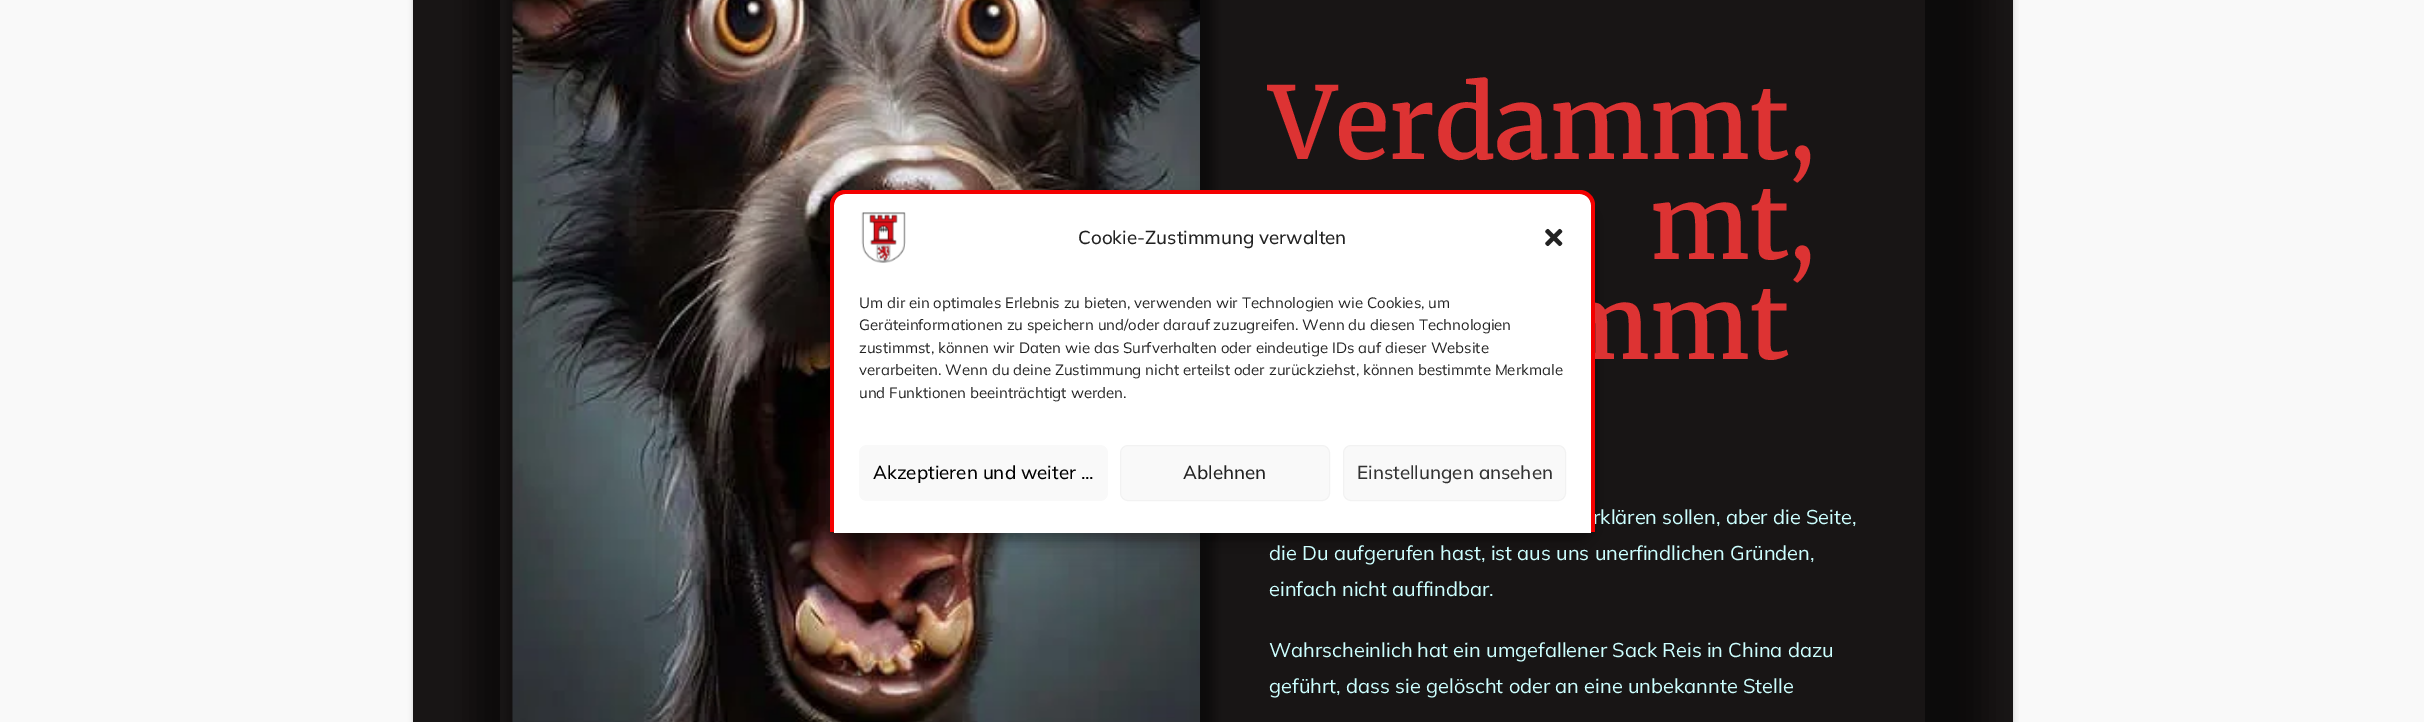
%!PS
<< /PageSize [2424 722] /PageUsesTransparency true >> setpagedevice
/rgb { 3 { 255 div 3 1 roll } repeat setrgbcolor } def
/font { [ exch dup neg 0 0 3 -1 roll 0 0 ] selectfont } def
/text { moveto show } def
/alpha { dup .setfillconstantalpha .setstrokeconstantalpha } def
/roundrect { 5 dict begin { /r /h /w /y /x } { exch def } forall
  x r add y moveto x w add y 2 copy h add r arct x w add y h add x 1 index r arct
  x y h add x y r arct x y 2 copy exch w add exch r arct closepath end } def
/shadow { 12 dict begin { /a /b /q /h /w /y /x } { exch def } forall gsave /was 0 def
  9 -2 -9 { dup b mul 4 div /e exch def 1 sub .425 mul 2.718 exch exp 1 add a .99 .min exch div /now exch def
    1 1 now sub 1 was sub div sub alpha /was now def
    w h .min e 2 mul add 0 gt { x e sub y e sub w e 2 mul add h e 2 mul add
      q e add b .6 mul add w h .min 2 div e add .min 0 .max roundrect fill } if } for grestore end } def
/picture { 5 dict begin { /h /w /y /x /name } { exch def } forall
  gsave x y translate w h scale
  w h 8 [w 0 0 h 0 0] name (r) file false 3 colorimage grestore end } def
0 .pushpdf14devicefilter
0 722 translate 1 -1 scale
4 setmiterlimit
249 249 249 rgb
0 0 2424 722 rectfill
0 0 0 rgb
413 -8 1600 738 0 2.5 0.15 shadow
24 21 21 rgb
413 0 1600 722 rectfill
gsave
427 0 moveto 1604 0 rlineto 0 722 rlineto -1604 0 rlineto closepath 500 -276 moveto 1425 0 rlineto 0 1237 rlineto -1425 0 rlineto closepath eoclip newpath
0 0 0 rgb
473 -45 1512 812 0 15 0.5 shadow
grestore
0 0 0 rgb
511 -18 703 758 0 6 0.5 shadow
(img_01.rgb) 512 0 688 722 picture
830 198 765 342 15 4 0.23 shadow
830 203 765 342 15 12.5 0.19 shadow
/Merriweather-SemiBold 100 font
221 51 51 rgb
(Verdammt,) 1269 159 text
(mt,) 1650 259 text
(mmt) 1550 359 text
/Mulish-Regular 20 font
204 255 255 rgb
(rklären sollen, aber die Seite,) 1593 524 text
(die Du aufgerufen hast, ist aus uns unerfindlichen Gründen,) 1269 560 text
(einfach nicht auffindbar.) 1269 596 text
(Wahrscheinlich hat ein umgefallener Sack Reis in China dazu) 1269 657 text
(geführt, dass sie gelöscht oder an eine unbekannte Stelle) 1269 693 text
255 255 255 rgb
845 194 moveto 735 0 rlineto 6 0 11 5 11 11 rcurveto 0 328 rlineto -757 0 rlineto 0 -328 rlineto 0 -6 5 -11 11 -11 rcurveto closepath fill
244 0 0 rgb
845 190 moveto 735 0 rlineto 8 0 15 7 15 15 rcurveto 0 327 rlineto -765 0 rlineto 0 -327 rlineto 0 -8 7 -15 15 -15 rcurveto closepath 845 194 moveto 735 0 rlineto 6 0 11 5 11 11 rcurveto 0 327 rlineto -757 0 rlineto 0 -327 rlineto 0 -6 5 -11 11 -11 rcurveto closepath eofill
(img_02.rgb) 861 212 45 51 picture
/Mulish-Medium 18.75 font
34 34 34 rgb
(Cookie-Zustimmung verwalten) 1078 244 text
(img_03.rgb) 1545 228 18 19 picture
/Mulish-Regular 15 font
(Um dir ein optimales Erlebnis zu bieten, verwenden wir Technologien wie Cookies, um) 859 308 text
(Geräteinformationen zu speichern und/oder darauf zuzugreifen. Wenn du diesen Technologien) 859 330 text
(zustimmst, können wir Daten wie das Surfverhalten oder eindeutige IDs auf dieser Website) 859 353 text
(verarbeiten. Wenn du deine Zustimmung nicht erteilst oder zurückziehst, können bestimmte Merkmale) 859 375 text
(und Funktionen beeinträchtigt werden.) 859 398 text
249 249 249 rgb
859 445 249 56 8 roundrect fill
/Mulish-Medium 18.75 font
0 0 0 rgb
(Akzeptieren und weiter ...) 873 479 text
249 249 249 rgb
1120.5 445.5 209 55 7.5 roundrect gsave fill grestore
242 242 242 rgb
stroke
34 34 34 rgb
(Ablehnen) 1183 479 text
249 249 249 rgb
1343.5 445.5 222 55 7.5 roundrect gsave fill grestore
242 242 242 rgb
stroke
51 51 51 rgb
(Einstellungen ansehen) 1357 479 text
.poppdf14devicefilter showpage
